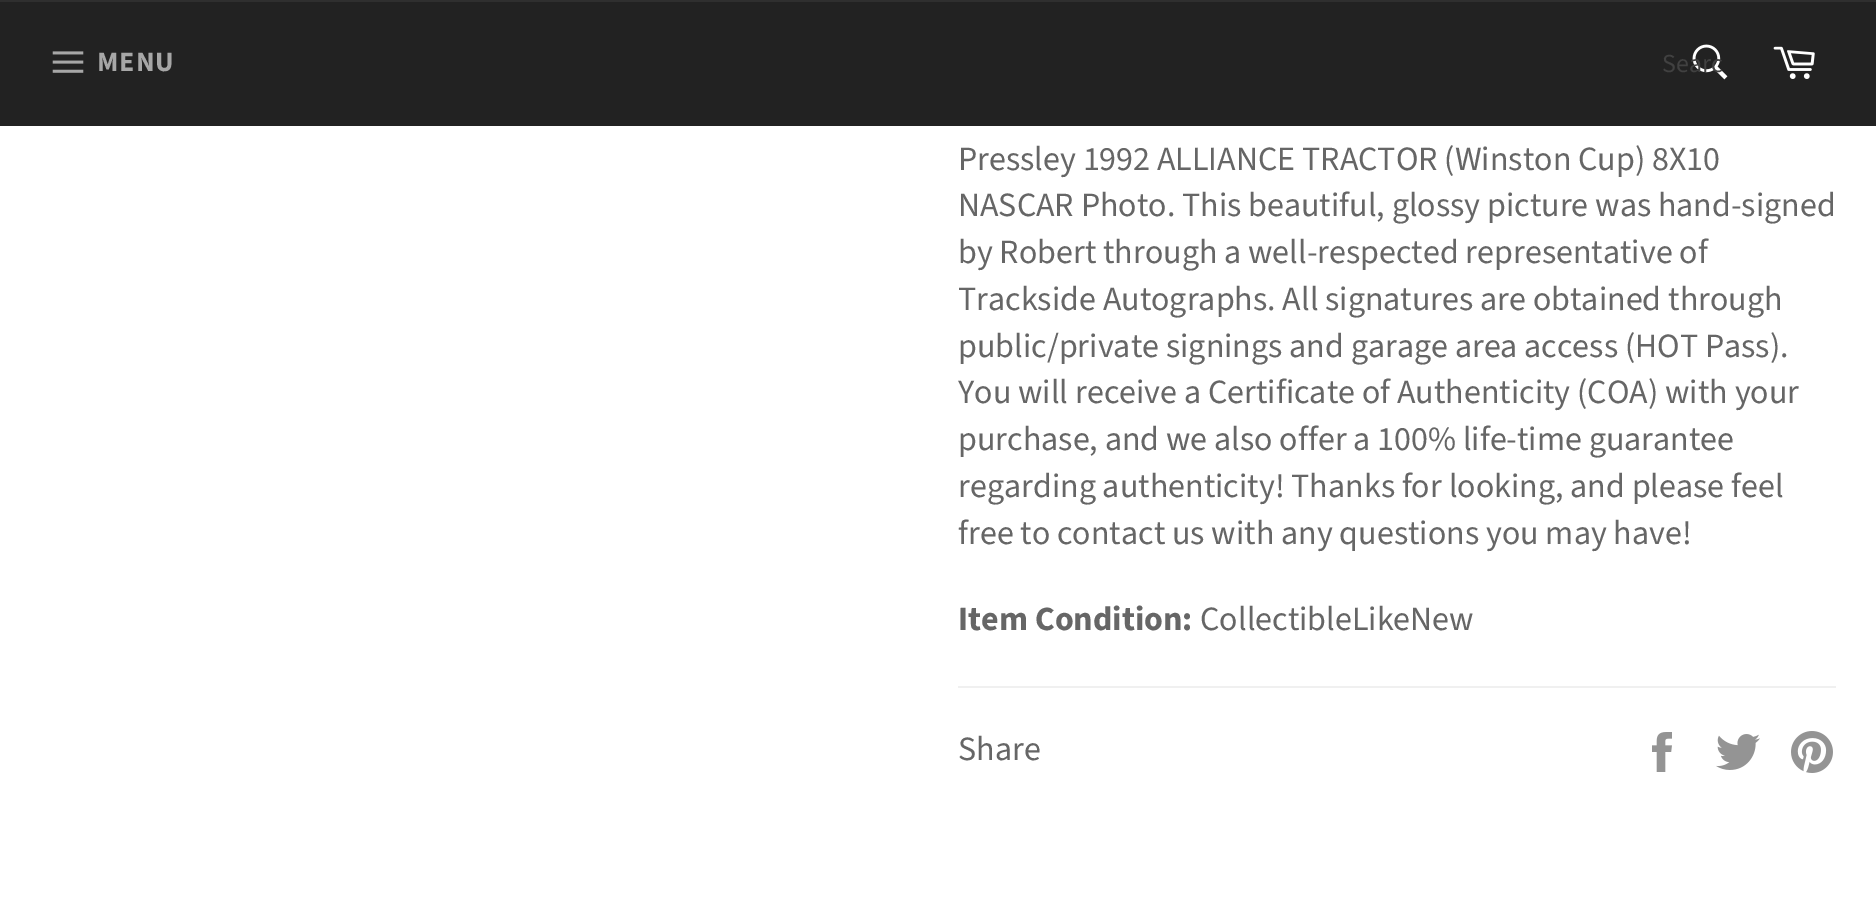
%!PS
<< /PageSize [1876 902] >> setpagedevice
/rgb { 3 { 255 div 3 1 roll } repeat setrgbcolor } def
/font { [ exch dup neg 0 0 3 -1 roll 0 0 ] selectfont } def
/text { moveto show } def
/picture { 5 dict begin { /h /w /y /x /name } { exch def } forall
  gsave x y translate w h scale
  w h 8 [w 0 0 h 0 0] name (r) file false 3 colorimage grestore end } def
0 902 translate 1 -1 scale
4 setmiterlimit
255 255 255 rgb
0 0 1876 902 rectfill
34 34 34 rgb
0 2 1876 124 rectfill
47 47 47 rgb
0 0 1876 2 rectfill
(img_01.rgb) 52 51 32 22 picture
(img_02.rgb) 1692 44 36 36 picture
(img_03.rgb) 1773 46 42 33 picture
240 240 240 rgb
958 686 878 2 rectfill
(img_04.rgb) 1652 732 20 40 picture
(img_05.rgb) 1716 734 44 36 picture
(img_06.rgb) 1791 731 42 42 picture
/SourceSansPro-Bold 28 font
167 167 167 rgb
97 71 moveto 1 0 (MENU) ashow
/SourceSansPro-Regular 26 font
65 65 65 rgb
(Searc) 1662 72 text
/SourceSansPro-Regular 34 font
102 102 102 rgb
(Pressley 1992 ALLIANCE TRACTOR \(Winston Cup\) 8X10) 958 170 text
(NASCAR Photo. This beautiful, glossy picture was hand-signed) 958 216 text
(by Robert through a well-respected representative of) 958 263 text
(Trackside Autographs. All signatures are obtained through) 958 310 text
(public/private signings and garage area access \(HOT Pass\).) 958 357 text
(You will receive a Certificate of Authenticity \(COA\) with your) 958 403 text
(purchase, and we also offer a 100% life-time guarantee) 958 450 text
(regarding authenticity! Thanks for looking, and please feel) 958 497 text
(free to contact us with any questions you may have!) 958 544 text
/SourceSansPro-Bold 34 font
(Item Condition:) 958 630 text
/SourceSansPro-Regular 34 font
(CollectibleLikeNew) 1200 630 text
(Share) 958 760 text
showpage
